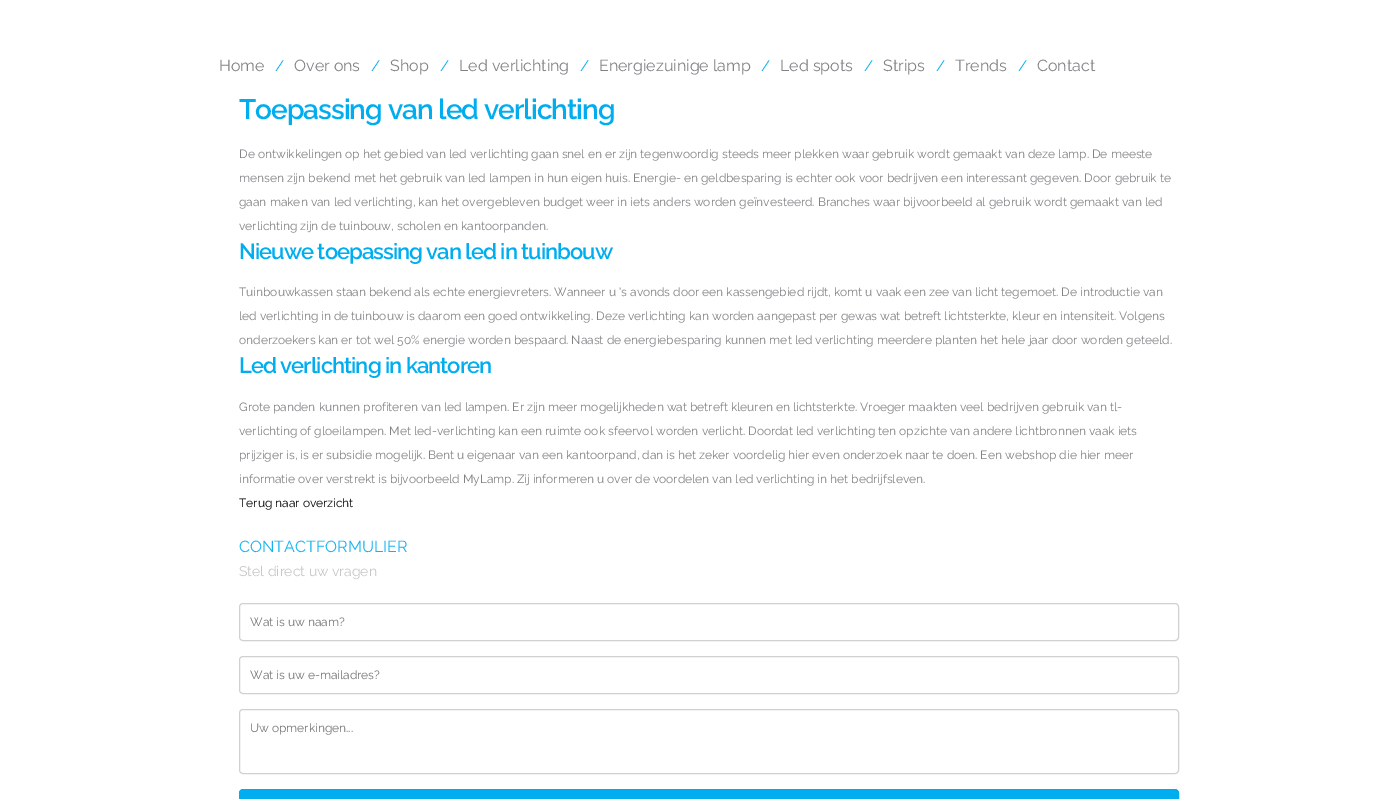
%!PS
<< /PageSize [1397 799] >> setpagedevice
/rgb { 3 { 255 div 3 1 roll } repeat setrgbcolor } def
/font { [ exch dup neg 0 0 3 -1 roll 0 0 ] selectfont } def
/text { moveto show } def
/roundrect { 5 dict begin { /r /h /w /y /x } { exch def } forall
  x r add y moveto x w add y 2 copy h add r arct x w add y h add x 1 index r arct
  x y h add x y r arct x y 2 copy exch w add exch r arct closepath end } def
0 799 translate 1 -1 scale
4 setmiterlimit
255 255 255 rgb
0 0 1397 799 rectfill
209 209 209 rgb
239.5 603.5 939 37 3.5 roundrect stroke
239.5 656.5 939 37 3.5 roundrect stroke
239.5 709.5 939 64 3.5 roundrect stroke
0 174 239 rgb
239.5 789.5 939 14 3.5 roundrect gsave fill grestore
stroke
/Raleway-Thin 16 font
129 130 133 rgb
(Home) 219 71 text
/Raleway-Thin 15 font
0 174 239 rgb
(/) 275 71 text
/Raleway-Thin 16 font
129 130 133 rgb
(Over ons) 294 71 text
/Raleway-Thin 15 font
0 174 239 rgb
(/) 371 71 text
/Raleway-Thin 16 font
129 130 133 rgb
(Shop) 390 71 text
/Raleway-Thin 15 font
0 174 239 rgb
(/) 440 71 text
/Raleway-Thin 16 font
129 130 133 rgb
(Led verlichting) 459 71 text
/Raleway-Thin 15 font
0 174 239 rgb
(/) 580 71 text
/Raleway-Thin 16 font
129 130 133 rgb
(Energiezuinige lamp) 599 71 text
/Raleway-Thin 15 font
0 174 239 rgb
(/) 761 71 text
/Raleway-Thin 16 font
129 130 133 rgb
(Led spots) 780 71 text
/Raleway-Thin 15 font
0 174 239 rgb
(/) 864 71 text
/Raleway-Thin 16 font
129 130 133 rgb
(Strips) 883 71 text
/Raleway-Thin 15 font
0 174 239 rgb
(/) 936 71 text
/Raleway-Thin 16 font
129 130 133 rgb
(Trends) 955 71 text
/Raleway-Thin 15 font
0 174 239 rgb
(/) 1018 71 text
/Raleway-Thin 16 font
129 130 133 rgb
(Contact) 1037 71 text
/Raleway-SemiBold 28 font
0 174 239 rgb
239 119 moveto -1 0 (Toepassing van led verlichting) ashow
/Raleway-Thin 12 font
129 130 133 rgb
(De ontwikkelingen op het gebied van led verlichting gaan snel en er zijn tegenwoordig steeds meer plekken waar gebruik wordt gemaakt van deze lamp. De meeste) 239 158 text
(mensen zijn bekend met het gebruik van led lampen in hun eigen huis. Energie- en geldbesparing is echter ook voor bedrijven een interessant gegeven. Door gebruik te) 239 182 text
(gaan maken van led verlichting, kan het overgebleven budget weer in iets anders worden geïnvesteerd. Branches waar bijvoorbeeld al gebruik wordt gemaakt van led) 239 206 text
(verlichting zijn de tuinbouw, scholen en kantoorpanden.) 239 230 text
/Raleway-SemiBold 22 font
0 174 239 rgb
239 259 moveto -1 0 (Nieuwe toepassing van led in tuinbouw) ashow
/Raleway-Thin 12 font
129 130 133 rgb
(Tuinbouwkassen staan bekend als echte energievreters. Wanneer u 's avonds door een kassengebied rijdt, komt u vaak een zee van licht tegemoet. De introductie van) 239 296 text
(led verlichting in de tuinbouw is daarom een goed ontwikkeling. Deze verlichting kan worden aangepast per gewas wat betreft lichtsterkte, kleur en intensiteit. Volgens) 239 320 text
(onderzoekers kan er tot wel 50% energie worden bespaard. Naast de energiebesparing kunnen met led verlichting meerdere planten het hele jaar door worden geteeld.) 239 344 text
/Raleway-SemiBold 22 font
0 174 239 rgb
239 373 moveto -1 0 (Led verlichting in kantoren) ashow
/Raleway-Thin 12 font
129 130 133 rgb
(Grote panden kunnen profiteren van led lampen. Er zijn meer mogelijkheden wat betreft kleuren en lichtsterkte. Vroeger maakten veel bedrijven gebruik van tl-) 239 411 text
(verlichting of gloeilampen. Met led-verlichting kan een ruimte ook sfeervol worden verlicht. Doordat led verlichting ten opzichte van andere lichtbronnen vaak iets) 239 435 text
(prijziger is, is er subsidie mogelijk. Bent u eigenaar van een kantoorpand, dan is het zeker voordelig hier even onderzoek naar te doen. Een webshop die hier meer) 239 459 text
(informatie over verstrekt is bijvoorbeeld MyLamp. Zij informeren u over de voordelen van led verlichting in het bedrijfsleven.) 239 483 text
0 0 0 rgb
(Terug naar overzicht) 239 507 text
/Raleway-Thin 16 font
17 179 240 rgb
(CONTACTFORMULIER) 239 552 text
/Raleway-Thin 14 font
199 199 201 rgb
(Stel direct uw vragen) 239 576 text
/Raleway-Thin 12 font
117 117 117 rgb
(Wat is uw naam?) 250 626 text
(Wat is uw e-mailadres?) 250 679 text
(Uw opmerkingen...) 250 732 text
showpage
